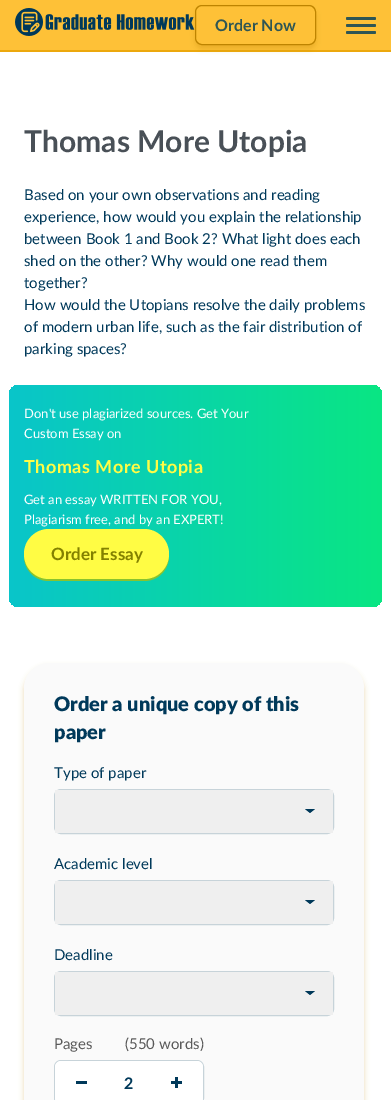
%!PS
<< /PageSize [391 1100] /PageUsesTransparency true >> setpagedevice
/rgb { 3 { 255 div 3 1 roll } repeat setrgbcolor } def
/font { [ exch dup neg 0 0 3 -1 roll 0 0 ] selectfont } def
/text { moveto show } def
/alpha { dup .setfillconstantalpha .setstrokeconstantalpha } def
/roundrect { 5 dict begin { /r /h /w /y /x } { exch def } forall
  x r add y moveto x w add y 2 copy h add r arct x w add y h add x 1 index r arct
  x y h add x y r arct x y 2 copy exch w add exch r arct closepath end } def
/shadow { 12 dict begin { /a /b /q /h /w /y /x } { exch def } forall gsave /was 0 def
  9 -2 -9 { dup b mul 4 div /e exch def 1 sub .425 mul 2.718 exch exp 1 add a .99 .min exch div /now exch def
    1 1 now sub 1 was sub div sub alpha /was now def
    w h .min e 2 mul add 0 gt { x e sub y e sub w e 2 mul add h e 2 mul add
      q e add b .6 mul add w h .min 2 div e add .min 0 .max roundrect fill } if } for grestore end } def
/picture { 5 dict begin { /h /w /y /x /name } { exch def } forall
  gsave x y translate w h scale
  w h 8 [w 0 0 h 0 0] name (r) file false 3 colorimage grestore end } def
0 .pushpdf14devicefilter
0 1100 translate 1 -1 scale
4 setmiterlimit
255 255 255 rgb
0 0 391 1100 rectfill
254 193 55 rgb
0 0 391 50 rectfill
236 168 13 rgb
0 50 391 2 rectfill
190 132 0 rgb
195 9 121 40 7 3 0.3 shadow
(img_01.rgb) 15 8 180 28 picture
254 193 55 rgb
195.5 5.5 120 39 6.5 roundrect gsave fill grestore
190 132 0 rgb
stroke
47 86 84 rgb
346 24 30 3 1.5 roundrect fill
346 17 30 3 1.5 roundrect fill
346 31 30 3 1.5 roundrect fill
gsave 9 385 373 222 10 roundrect clip newpath
<< /ShadingType 2 /ColorSpace /DeviceRGB /Coords [9 496 382 496] /Extend [true true] /Function << /FunctionType 2 /Domain [0 1] /C0 [0.039 0.773 0.792] /C1 [0.035 0.902 0.514] /N 1 >> >> shfill grestore
137 195 46 rgb
24 555 moveto 0 1 rlineto 0 14 11 25 25 25 rcurveto 95 0 rlineto 14 0 25 -11 25 -25 rcurveto 0 -1 rlineto -1 13 -12 24 -25 24 rcurveto -95 0 rlineto -13 0 -24 -11 -25 -24 rcurveto closepath fill
255 252 68 rgb
24 529 145 50 25 roundrect fill
190 132 0 rgb
24 667 340 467 25 3 0.3 shadow
250 250 250 rgb
24 663 340 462 25 roundrect fill
199 211 217 rgb
54.5 789.5 279 44 6.5 roundrect stroke
239 239 239 rgb
55 790 278 43 rectfill
0 57 90 rgb
305 809 moveto 10 0 rlineto -5 4 rlineto closepath fill
199 211 217 rgb
54.5 880.5 279 44 6.5 roundrect stroke
239 239 239 rgb
55 881 278 43 rectfill
0 57 90 rgb
305 900 moveto 10 0 rlineto -5 4 rlineto closepath fill
199 211 217 rgb
54.5 971.5 279 44 6.5 roundrect stroke
239 239 239 rgb
55 972 278 43 rectfill
0 57 90 rgb
305 991 moveto 10 0 rlineto -5 4 rlineto closepath fill
199 211 217 rgb
54.5 1060.5 149 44 6.5 roundrect stroke
255 255 255 rgb
55 1061 148 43 6 roundrect fill
0 57 90 rgb
76 1081 11 3 rectfill
171 1081 11 3 rectfill
175 1077 3 11 rectfill
/Lato-Bold 16 font
47 86 84 rgb
(Order Now) 215 31 text
/Lato-Bold 30 font
73 80 87 rgb
(Thomas More Utopia) 24 152 text
/Lato-Regular 15 font
0 57 90 rgb
(Based on your own observations and reading) 24 200 text
(experience, how would you explain the relationship) 24 222 text
(between Book 1 and Book 2? What light does each) 24 244 text
(shed on the other? Why would one read them) 24 266 text
(together?) 24 288 text
(How would the Utopians resolve the daily problems) 24 310 text
(of modern urban life, such as the fair distribution of) 24 332 text
(parking spaces?) 24 354 text
/Lato-Regular 13 font
255 255 255 rgb
(Don't use plagiarized sources. Get Your) 24 418 text
(Custom Essay on) 24 438 text
/Lato-Bold 18 font
255 252 69 rgb
24 473 moveto 0.5 0 (Thomas More Utopia) ashow
/Lato-Regular 13 font
255 255 255 rgb
(Get an essay WRITTEN FOR YOU,) 24 504 text
(Plagiarism free, and by an EXPERT!) 24 524 text
/Lato-Bold 17 font
131 129 0 rgb
(Order Essay) 51 560 text
/Lato-Black 20 font
0 57 90 rgb
(Order a unique copy of this) 54 711 text
(paper) 54 739 text
/Lato-Regular 15 font
(Type of paper) 54 778 text
(Academic level) 54 869 text
(Deadline) 54 960 text
90 90 90 rgb
(Pages) 54 1049 text
(\(550 words\)) 125 1049 text
/Lato-Bold 16 font
0 57 90 rgb
(2) 124 1089 text
.poppdf14devicefilter showpage
